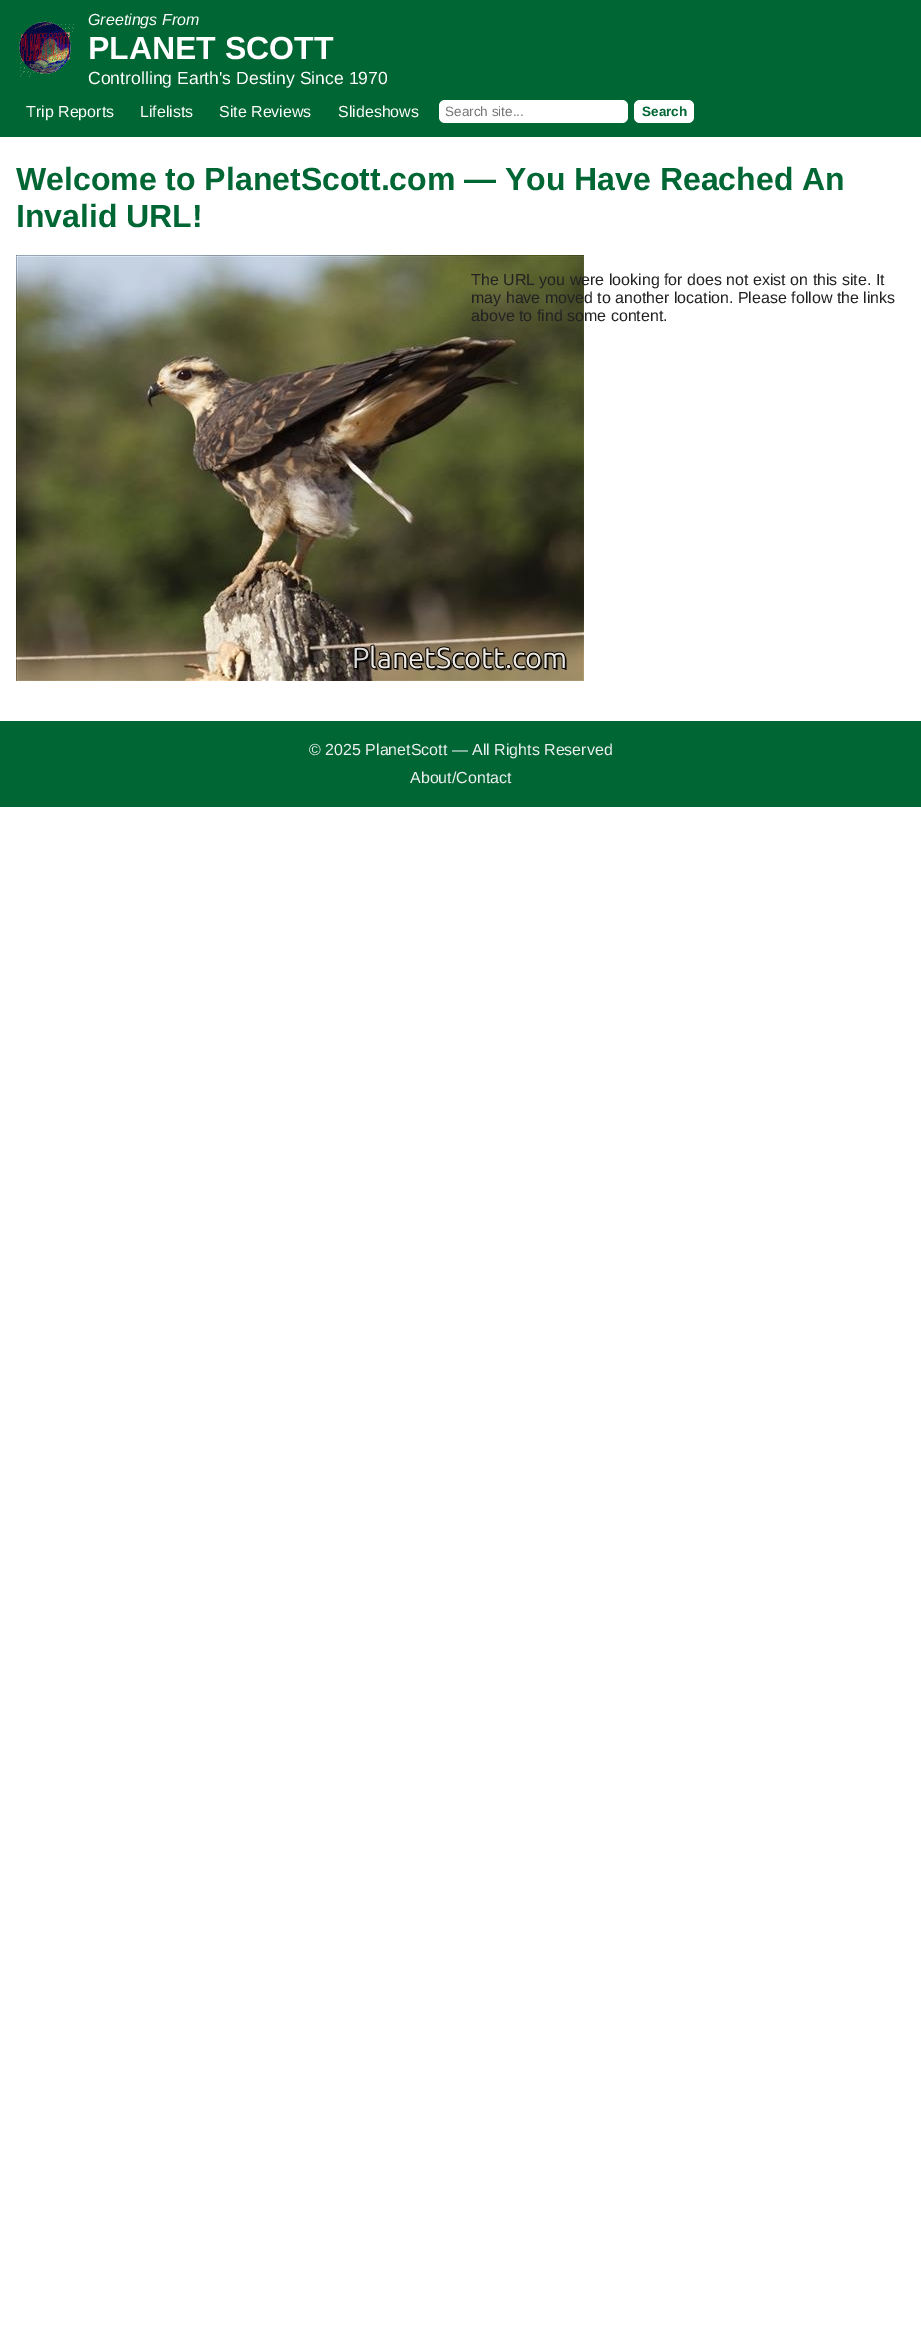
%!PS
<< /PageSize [921 2332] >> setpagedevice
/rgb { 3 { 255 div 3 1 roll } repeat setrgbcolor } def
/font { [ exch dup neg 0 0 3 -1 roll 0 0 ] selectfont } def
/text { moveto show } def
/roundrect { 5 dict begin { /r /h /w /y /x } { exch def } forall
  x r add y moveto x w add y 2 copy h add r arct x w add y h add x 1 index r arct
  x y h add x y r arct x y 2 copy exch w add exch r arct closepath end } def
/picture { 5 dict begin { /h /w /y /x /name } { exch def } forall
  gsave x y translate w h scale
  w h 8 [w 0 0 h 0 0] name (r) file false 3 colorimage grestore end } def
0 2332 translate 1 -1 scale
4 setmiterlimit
255 255 255 rgb
0 0 921 2332 rectfill
0 102 51 rgb
0 0 921 137 rectfill
(img_01.rgb) 19 21 55 56 picture
255 255 255 rgb
439 100 189 23 6 roundrect fill
634 100 60 23 6 roundrect fill
(img_02.rgb) 16 255 568 426 picture
0 102 51 rgb
0 721 921 86 rectfill
/LiberationSans-Italic 16 font
255 255 255 rgb
(Greetings From) 88 25 text
/LiberationSans-Bold 32 font
(PLANET SCOTT) 88 59 text
/LiberationSans-Regular 17.6 font
(Controlling Earth's Destiny Since 1970) 88 84 text
/LiberationSans-Regular 16 font
(Trip Reports) 26 117 text
(Lifelists) 140 117 text
(Site Reviews) 219 117 text
(Slideshows) 338 117 text
/LiberationSans-Regular 13.5 font
117 117 117 rgb
(Search site...) 445 116 text
/LiberationSans-Bold 13.5 font
0 102 51 rgb
(Search) 642 116 text
/LiberationSans-Bold 32 font
(Welcome to PlanetScott.com — You Have Reached An) 16 190 text
(Invalid URL!) 16 227 text
/LiberationSans-Regular 16 font
34 34 34 rgb
(The URL you were looking for does not exist on this site. It) 471 285 text
(may have moved to another location. Please follow the links) 471 303 text
(above to find some content.) 471 321 text
236 240 241 rgb
(© 2025 PlanetScott — All Rights Reserved) 309 755 text
(About/Contact) 410 783 text
showpage
